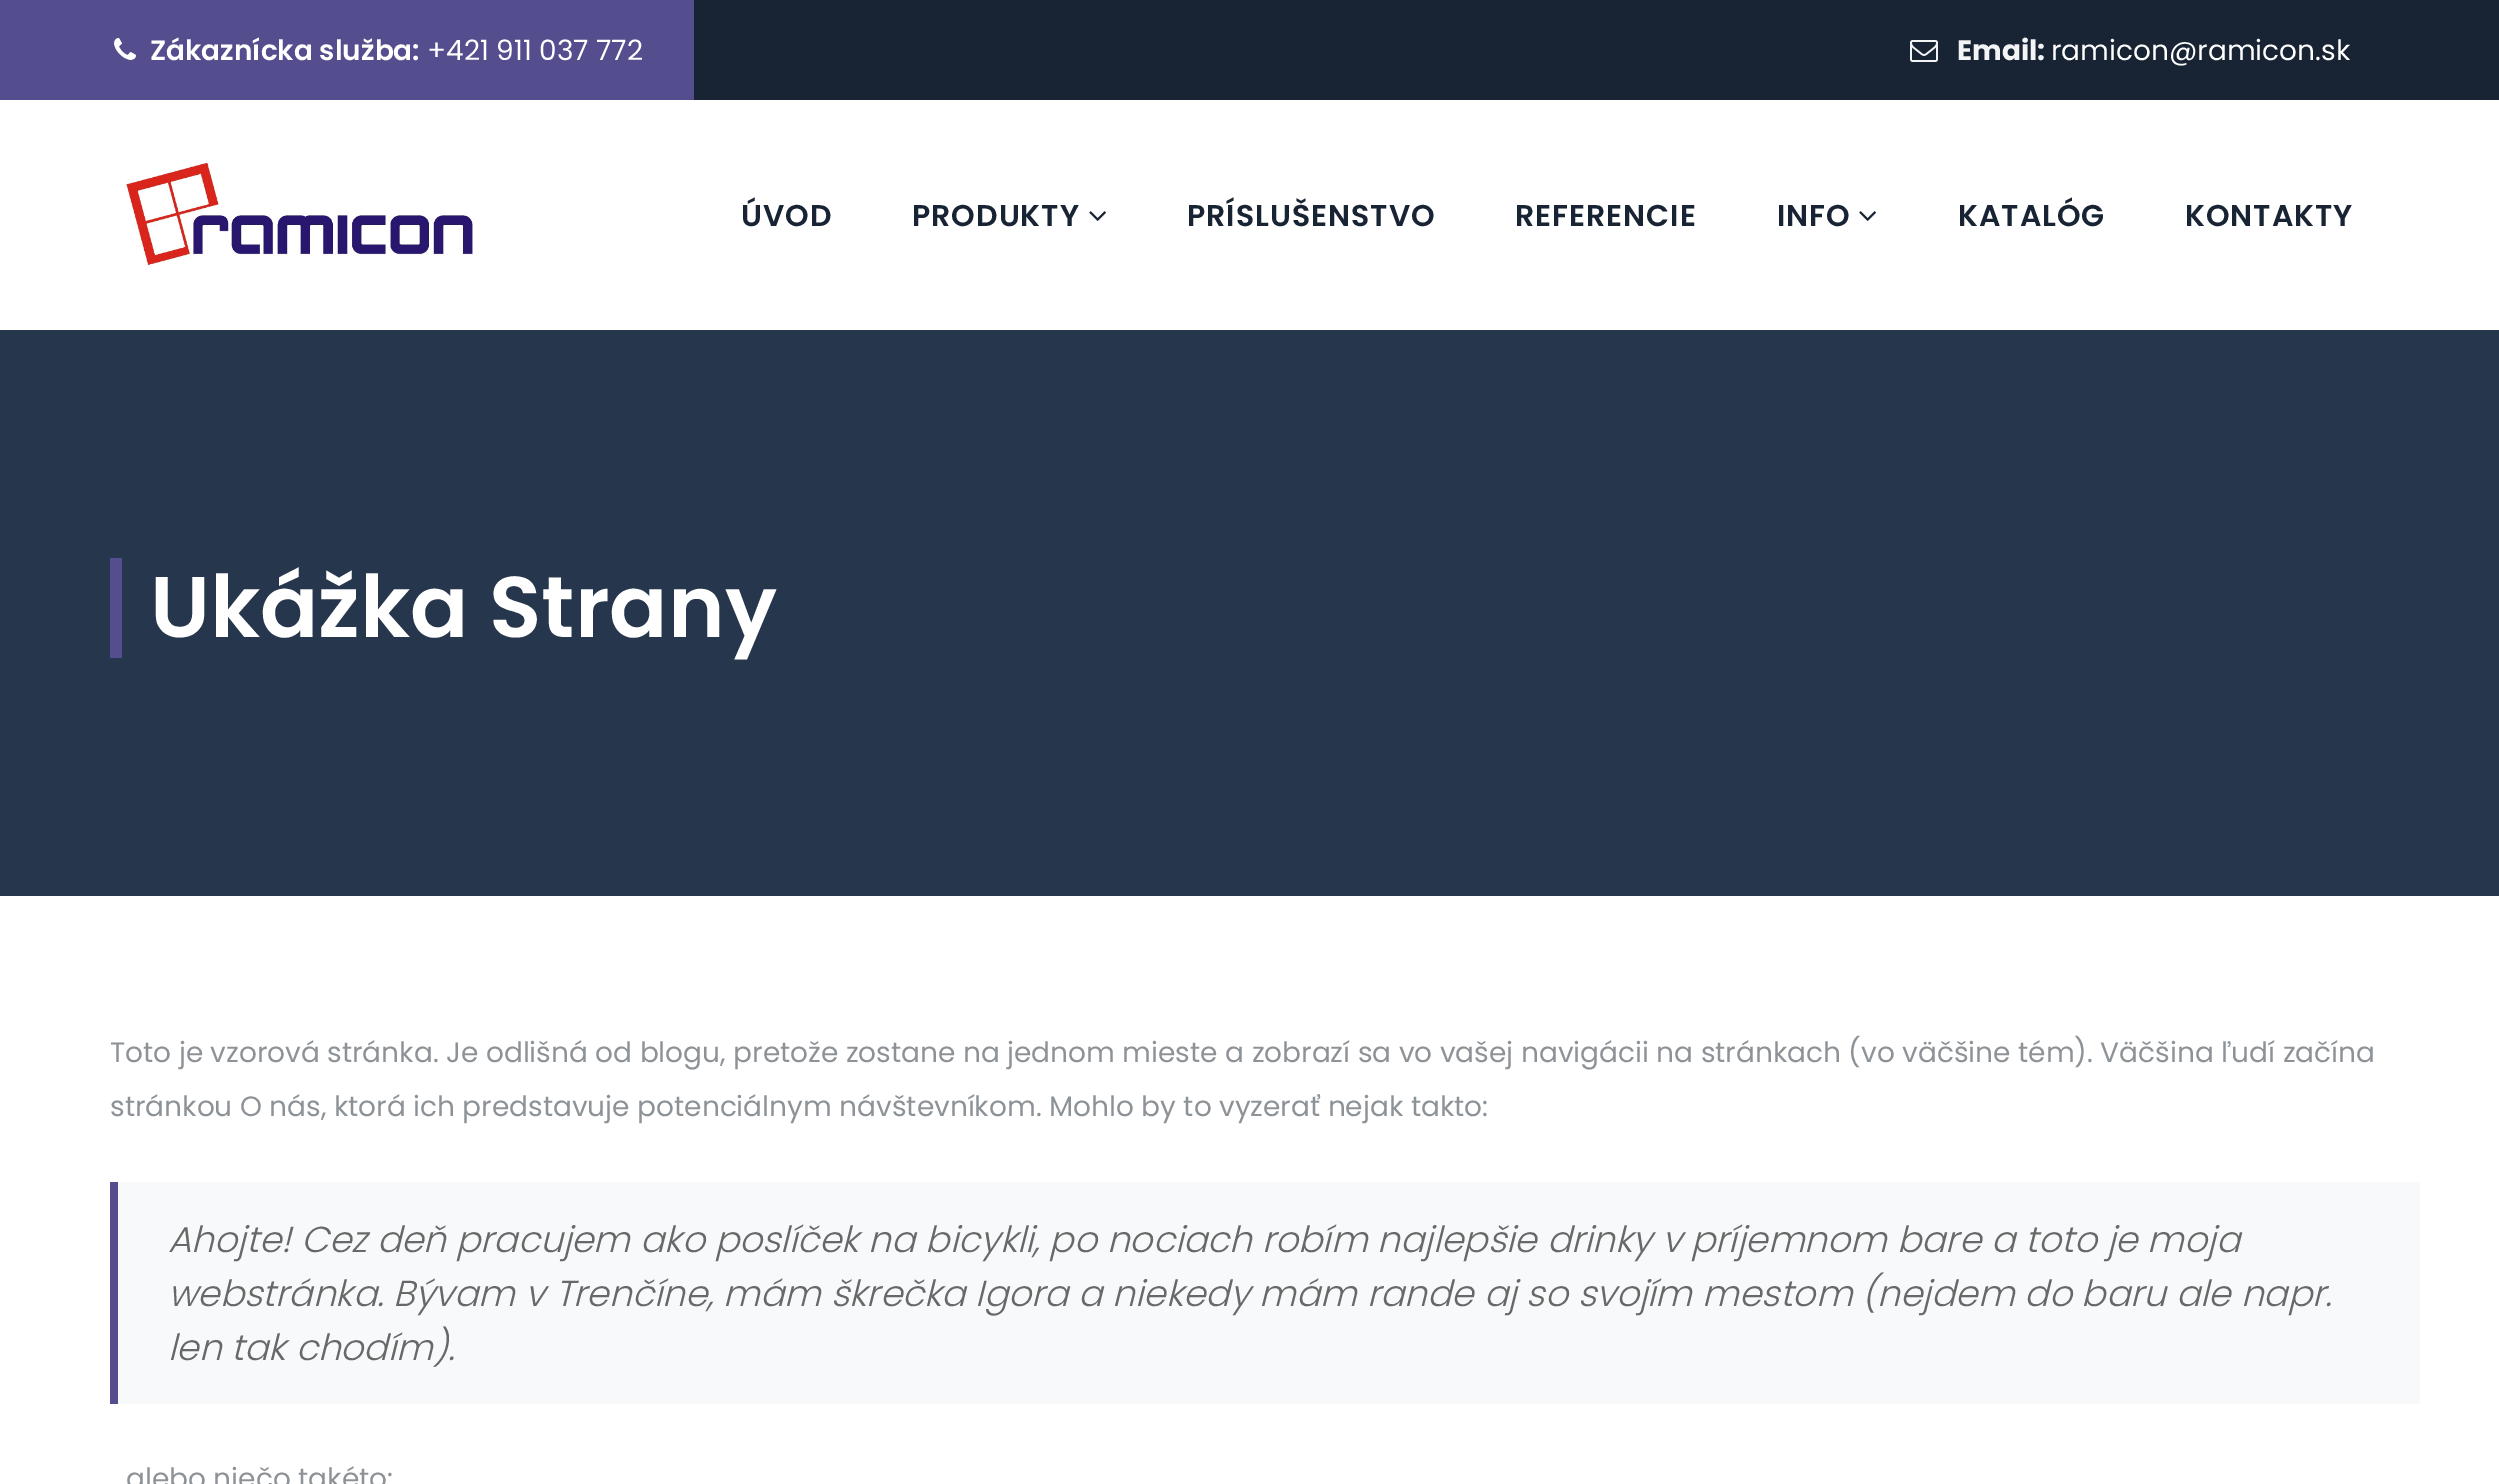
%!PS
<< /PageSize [2499 1484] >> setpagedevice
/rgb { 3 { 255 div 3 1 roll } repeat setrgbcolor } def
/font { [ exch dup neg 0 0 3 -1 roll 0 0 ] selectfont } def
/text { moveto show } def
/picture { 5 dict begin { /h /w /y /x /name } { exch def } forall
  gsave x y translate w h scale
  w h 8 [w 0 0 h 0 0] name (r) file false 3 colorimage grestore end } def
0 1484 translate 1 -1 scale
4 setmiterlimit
255 255 255 rgb
0 0 2499 1484 rectfill
24 35 51 rgb
694 0 1805 100 rectfill
84 77 142 rgb
0 0 694 100 rectfill
(img_01.rgb) 114 38 22 22 picture
(img_02.rgb) 1910 40 28 22 picture
(img_03.rgb) 125 160 348 109 picture
(img_04.rgb) 1089 211 17 10 picture
(img_04.rgb) 1859 211 17 10 picture
38 54 76 rgb
0 330 2499 566 rectfill
84 77 142 rgb
110 558 12 100 rectfill
248 249 250 rgb
118 1182 2302 222 rectfill
84 77 142 rgb
110 1182 8 222 rectfill
/Poppins-SemiBold 28 font
255 255 255 rgb
(Zákaznícka služba:) 150 60 text
/Poppins-Regular 28 font
(+421 911 037 772) 427 60 text
/Poppins-Bold 28 font
243 244 245 rgb
(Email:) 1957 60 text
/Poppins-Regular 28 font
255 255 255 rgb
(ramicon@ramicon.sk) 2051 60 text
/Poppins-SemiBold 30 font
24 35 51 rgb
741 226 moveto 1 0 (ÚVOD) ashow
912 226 moveto 1 0 (PRODUKTY) ashow
1187 226 moveto 1 0 (PRÍSLUŠENSTVO) ashow
1515 226 moveto 1 0 (REFERENCIE) ashow
1777 226 moveto 1 0 (INFO) ashow
1958 226 moveto 1 0 (KATALÓG) ashow
2185 226 moveto 1 0 (KONTAKTY) ashow
/Poppins-SemiBold 86 font
255 255 255 rgb
(Ukážka Strany) 150 637 text
/Poppins-Regular 28 font
141 146 151 rgb
(Toto je vzorová stránka. Je odlišná od blogu, pretože zostane na jednom mieste a zobrazí sa vo vašej navigácii na stránkach \(vo väčšine tém\). Väčšina ľudí začína) 110 1062 text
(stránkou O nás, ktorá ich predstavuje potenciálnym návštevníkom. Mohlo by to vyzerať nejak takto:) 110 1116 text
/Poppins-LightItalic 36 font
104 104 104 rgb
(Ahojte! Cez deň pracujem ako poslíček na bicykli, po nociach robím najlepšie drinky v príjemnom bare a toto je moja) 168 1252 text
(webstránka. Bývam v Trenčíne, mám škrečka Igora a niekedy mám rande aj so svojím mestom \(nejdem do baru ale napr.) 168 1306 text
(len tak chodím\).) 168 1360 text
/Poppins-Regular 28 font
141 146 151 rgb
(alebo niečo takéto:) 126 1488 text
showpage
